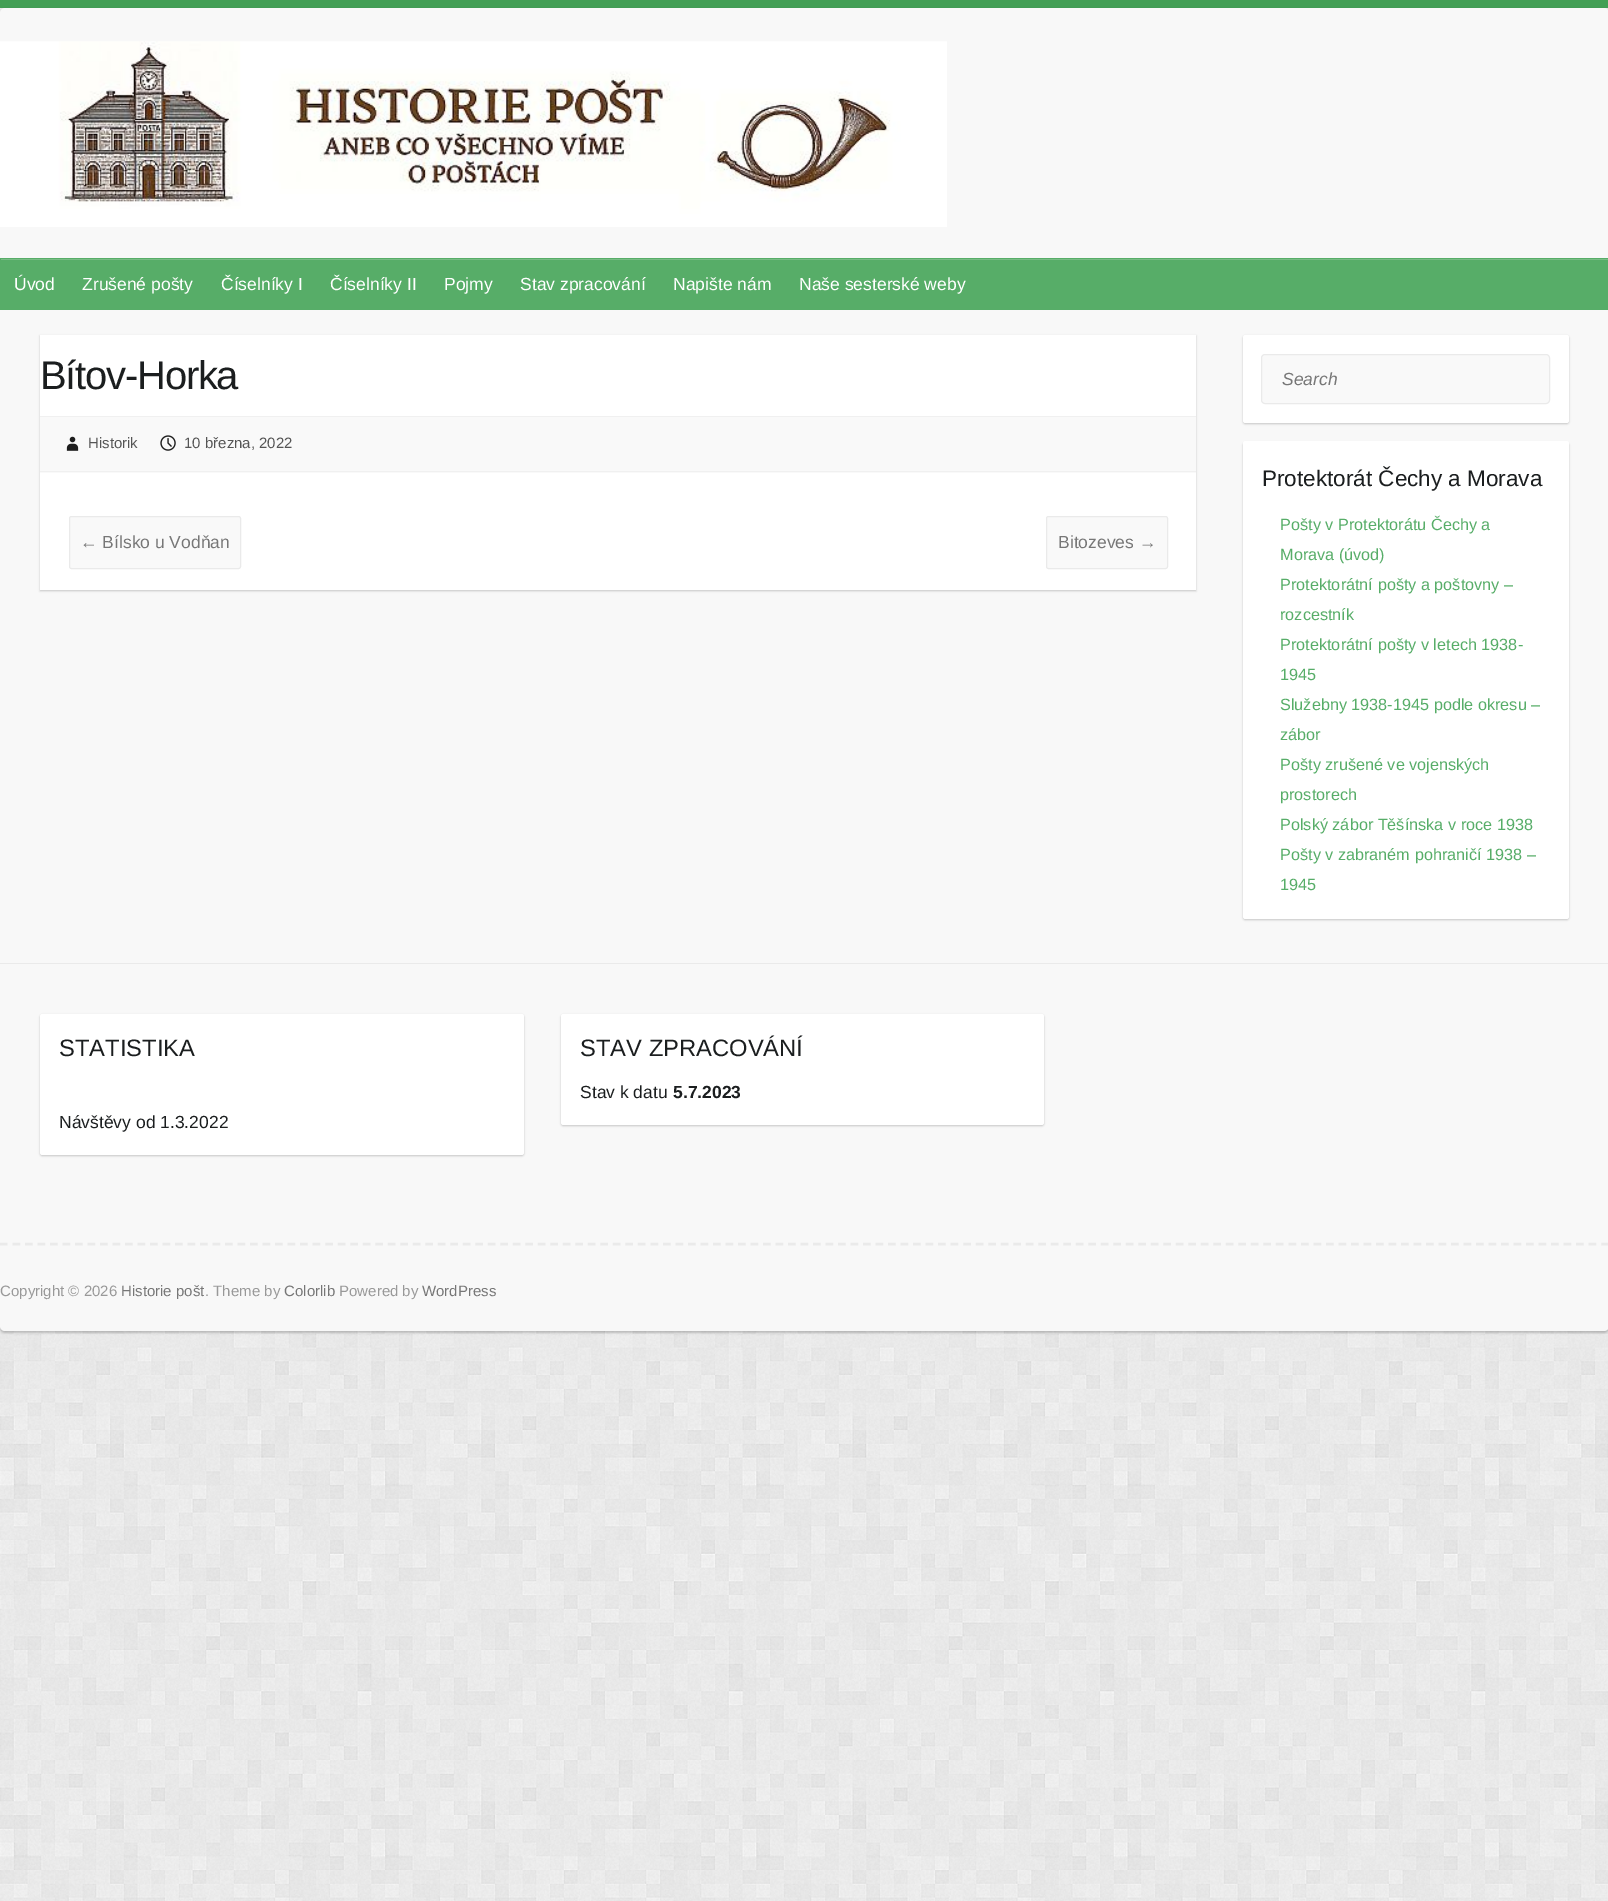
%!PS
<< /PageSize [1608 1901] /PageUsesTransparency true >> setpagedevice
/rgb { 3 { 255 div 3 1 roll } repeat setrgbcolor } def
/font { [ exch dup neg 0 0 3 -1 roll 0 0 ] selectfont } def
/text { moveto show } def
/alpha { dup .setfillconstantalpha .setstrokeconstantalpha } def
/roundrect { 5 dict begin { /r /h /w /y /x } { exch def } forall
  x r add y moveto x w add y 2 copy h add r arct x w add y h add x 1 index r arct
  x y h add x y r arct x y 2 copy exch w add exch r arct closepath end } def
/shadow { 12 dict begin { /a /b /q /h /w /y /x } { exch def } forall gsave /was 0 def
  9 -2 -9 { dup b mul 4 div /e exch def 1 sub .425 mul 2.718 exch exp 1 add a .99 .min exch div /now exch def
    1 1 now sub 1 was sub div sub alpha /was now def
    w h .min e 2 mul add 0 gt { x e sub y e sub w e 2 mul add h e 2 mul add
      q e add b .6 mul add w h .min 2 div e add .min 0 .max roundrect fill } if } for grestore end } def
/picture { 5 dict begin { /h /w /y /x /name } { exch def } forall
  gsave x y translate w h scale
  w h 8 [w 0 0 h 0 0] name (r) file false 3 colorimage grestore end } def
0 .pushpdf14devicefilter
0 1901 translate 1 -1 scale
4 setmiterlimit
255 255 255 rgb
0 0 1608 1901 rectfill
(img_01.rgb) 0 8 1608 1893 picture
67 159 85 rgb
0 0 1608 8 rectfill
0 0 0 rgb
0 9 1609 1324 5 1 0.2 shadow
248 248 248 rgb
0 8 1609 1323 5 roundrect fill
(img_02.rgb) 0 41 947 186 picture
87 173 104 rgb
0 258 1608 52 rectfill
121 189 134 rgb
1 259 1607 1 rectfill
0 0 0 rgb
40 336 1156 255 0 1 0.2 shadow
255 255 255 rgb
40 335 1156 255 rectfill
249 249 249 rgb
40 417 1156 56 rectfill
240 240 240 rgb
40 416 1156 1 rectfill
40 471 1156 1 rectfill
(img_03.rgb) 66 436 13 15 picture
(img_04.rgb) 160 435 16 16 picture
249 249 249 rgb
69.5 516.5 171 52 2 roundrect gsave fill grestore
234 234 234 rgb
stroke
249 249 249 rgb
1046.5 516.5 121 52 2 roundrect gsave fill grestore
234 234 234 rgb
stroke
0 0 0 rgb
1243 336 326 88 2.5 1 0.2 shadow
255 255 255 rgb
1243 335 326 88 2.5 roundrect fill
249 249 249 rgb
1261.5 354.5 288 49 3.5 roundrect gsave fill grestore
234 234 234 rgb
stroke
0 0 0 rgb
1243 443 326 477 2.5 1 0.2 shadow
255 255 255 rgb
1243 441 326 478 2.5 roundrect fill
234 234 234 rgb
0 963 1608 1 rectfill
0 0 0 rgb
40 1015 484 141 2.5 1 0.2 shadow
255 255 255 rgb
40 1014 484 141 2.5 roundrect fill
0 0 0 rgb
561 1015 483 111 2.5 1 0.2 shadow
255 255 255 rgb
561 1014 483 111 2.5 roundrect fill
234 234 234 rgb
2.5 setlinewidth
[7.5 5.01] 0 setdash
0 1244 moveto 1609 0 rlineto stroke
/LiberationSans-Regular 17.5 font
255 255 255 rgb
(Úvod) 14 290 text
(Zrušené pošty) 82 290 text
(Číselníky I) 221 290 text
(Číselníky II) 330 290 text
(Pojmy) 444 290 text
(Stav zpracování) 520 290 text
(Napište nám) 673 290 text
(Naše sesterské weby) 799 290 text
/LiberationSans-Regular 40 font
27 30 31 rgb
40 389 moveto -1.25 0 (Bítov-Horka) ashow
/LiberationSans-Regular 15 font
85 85 85 rgb
(Historik) 88 448 text
(10 března, 2022) 184 448 text
/LiberationSans-Regular 17.5 font
119 119 119 rgb
(← Bílsko u Vodňan) 80 548 text
(Bitozeves →) 1058 548 text
/LiberationSans-Italic 17.5 font
(Search) 1282 385 text
/LiberationSans-Regular 22.5 font
27 30 31 rgb
(Protektorát Čechy a Morava) 1262 486 text
/LiberationSans-Regular 16.25 font
87 173 104 rgb
(Pošty v Protektorátu Čechy a) 1280 530 text
(Morava \(úvod\)) 1280 560 text
(Protektorátní pošty a poštovny –) 1280 590 text
(rozcestník) 1280 620 text
(Protektorátní pošty v letech 1938-) 1280 650 text
(1945) 1280 680 text
(Služebny 1938-1945 podle okresu –) 1280 710 text
(zábor) 1280 740 text
(Pošty zrušené ve vojenských) 1280 770 text
(prostorech) 1280 800 text
(Polský zábor Těšínska v roce 1938) 1280 830 text
(Pošty v zabraném pohraničí 1938 –) 1280 860 text
(1945) 1280 890 text
/LiberationSans-Regular 23.75 font
27 30 31 rgb
(STATISTIKA) 59 1056 text
/LiberationSans-Regular 17.5 font
(Návštěvy od 1.3.2022) 59 1128 text
/LiberationSans-Regular 23.75 font
(STAV ZPRACOVÁNÍ) 580 1056 text
/LiberationSans-Regular 17.5 font
(Stav k datu) 580 1098 text
/LiberationSans-Bold 17.5 font
(5.7.2023) 673 1098 text
/LiberationSans-Regular 15 font
153 153 153 rgb
(Copyright © 2026) 0 1296 text
119 119 119 rgb
(Historie pošt) 121 1296 text
153 153 153 rgb
(. Theme by) 205 1296 text
119 119 119 rgb
(Colorlib) 284 1296 text
153 153 153 rgb
(Powered by) 339 1296 text
119 119 119 rgb
(WordPress) 422 1296 text
.poppdf14devicefilter showpage
